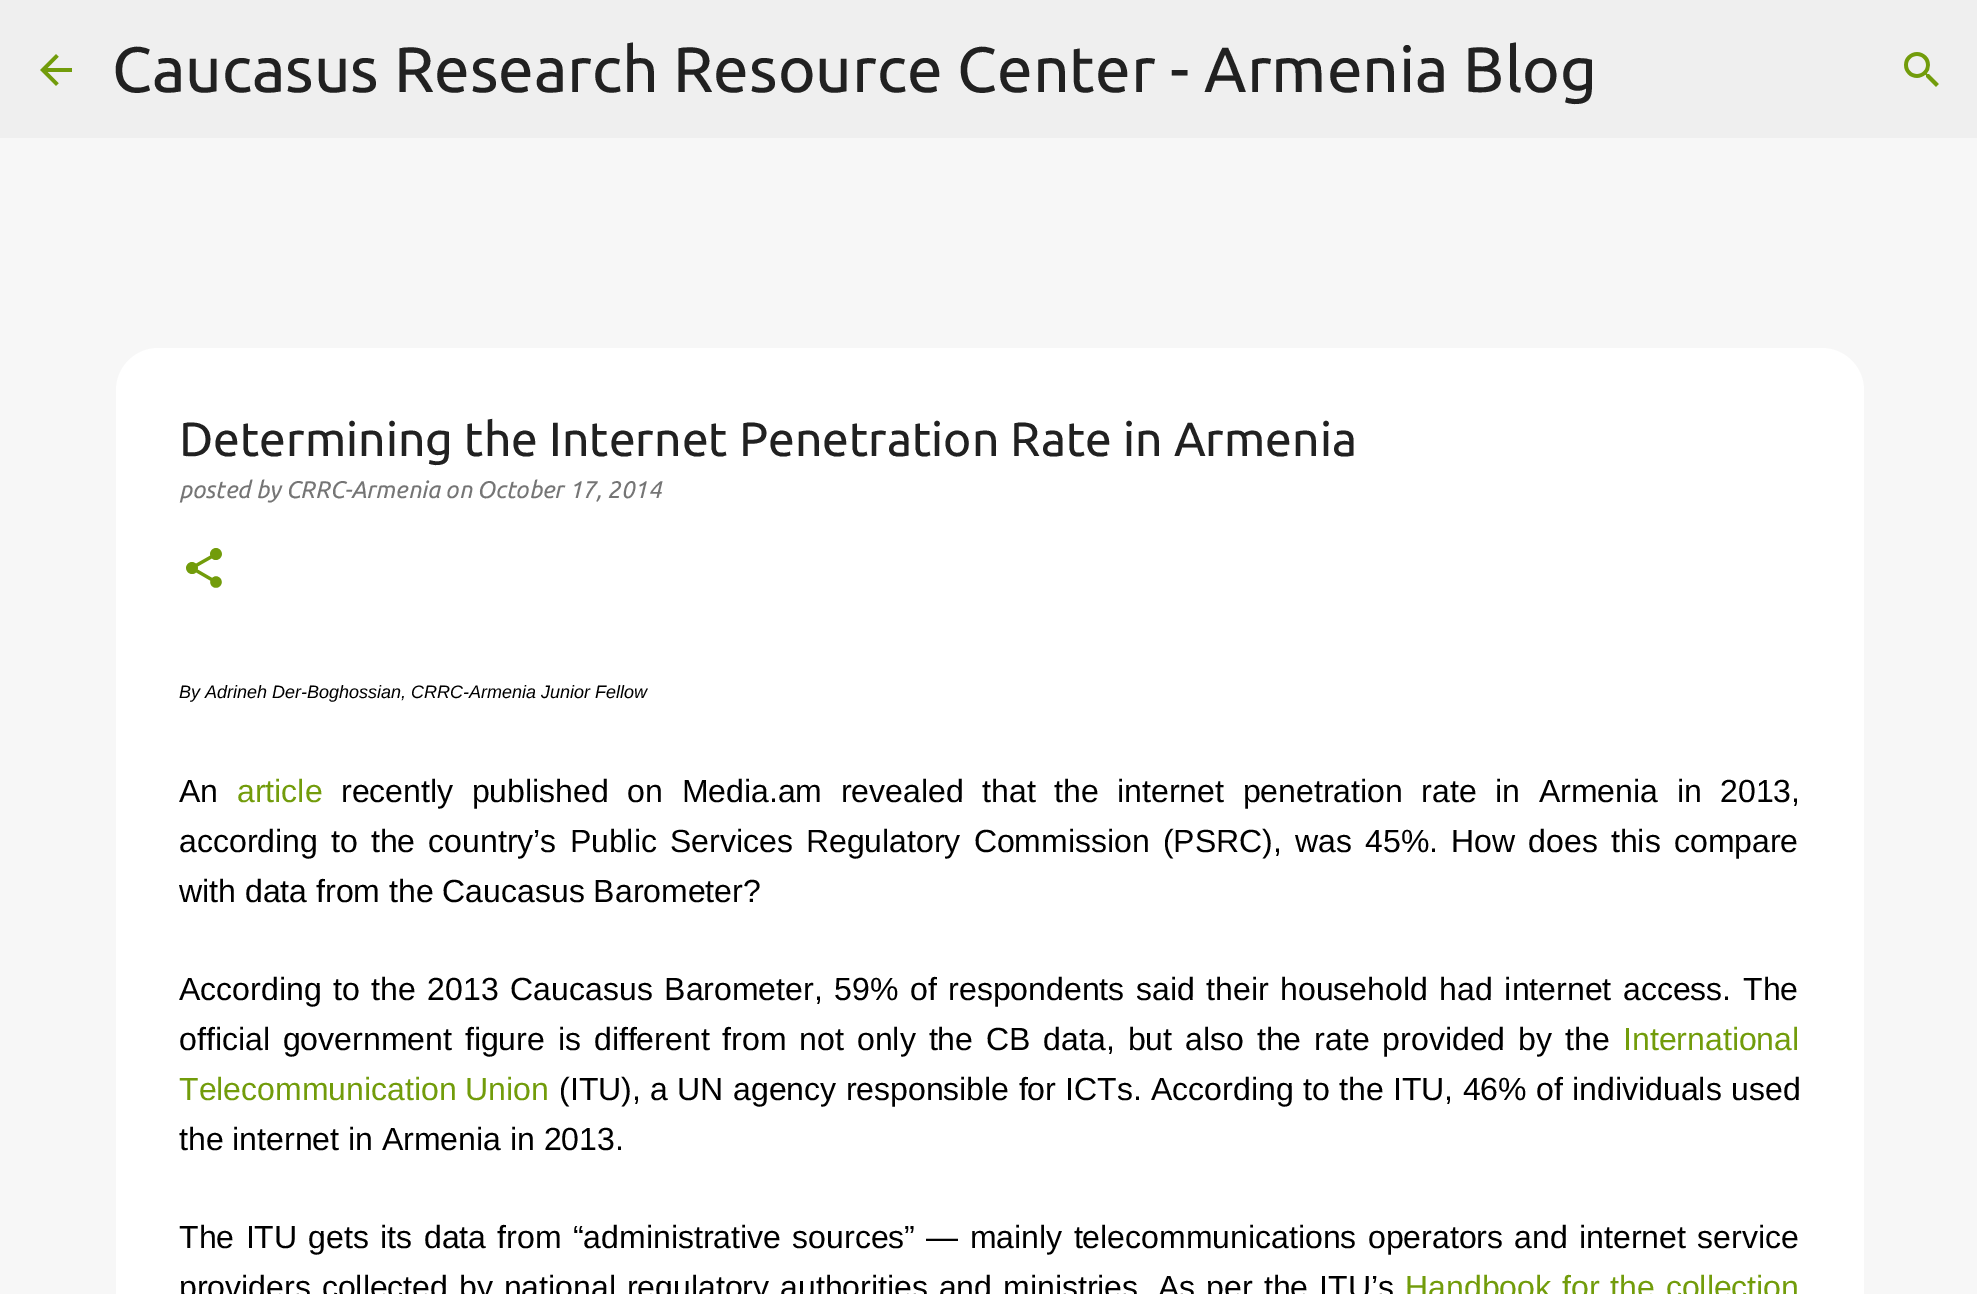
%!PS
<< /PageSize [1977 1294] >> setpagedevice
/rgb { 3 { 255 div 3 1 roll } repeat setrgbcolor } def
/font { [ exch dup neg 0 0 3 -1 roll 0 0 ] selectfont } def
/text { moveto show } def
/picture { 5 dict begin { /h /w /y /x /name } { exch def } forall
  gsave x y translate w h scale
  w h 8 [w 0 0 h 0 0] name (r) file false 3 colorimage grestore end } def
0 1294 translate 1 -1 scale
4 setmiterlimit
247 247 247 rgb
0 0 1977 1294 rectfill
239 239 239 rgb
0 0 1977 138 rectfill
(img_01.rgb) 40 54 32 32 picture
(img_02.rgb) 1904 52 35 35 picture
255 255 255 rgb
158 348 moveto 1664 0 rlineto 23 0 42 19 42 42 rcurveto 0 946 rlineto -1748 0 rlineto 0 -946 rlineto 0 -23 19 -42 42 -42 rcurveto closepath fill
(img_03.rgb) 186 548 36 40 picture
/Ubuntu-Regular 64 font
33 33 33 rgb
(Caucasus Research Resource Center - Armenia Blog) 112 92 text
/Ubuntu-Regular 48 font
(Determining the Internet Penetration Rate in Armenia) 179 456 text
/Ubuntu-Italic 24 font
117 117 117 rgb
(posted by CRRC-Armenia on October 17, 2014) 179 498 text
/LiberationSans-Italic 18 font
0 0 0 rgb
(By Adrineh Der-Boghossian, CRRC-Armenia Junior Fellow) 179 698 text
/LiberationSans-Regular 32 font
(An) 179 802 text
114 156 11 rgb
(article) 237 802 text
0 0 0 rgb
341 802 moveto 9.75 0 32 (recently published on Media.am revealed that the internet penetration rate in Armenia in 2013,) widthshow
179 852 moveto 4.25 0 32 (according to the country’s Public Services Regulatory Commission \(PSRC\), was 45%. How does this compare) widthshow
(with data from the Caucasus Barometer?) 179 902 text
179 1000 moveto 2.75 0 32 (According to the 2013 Caucasus Barometer, 59% of respondents said their household had internet access. The) widthshow
179 1050 moveto 4.1 0 32 (official government figure is different from not only the CB data, but also the rate provided by the) widthshow
114 156 11 rgb
(International) 1623 1050 text
(Telecommunication Union) 179 1100 text
0 0 0 rgb
559 1100 moveto 0.5 0 32 (\(ITU\), a UN agency responsible for ICTs. According to the ITU, 46% of individuals used) widthshow
(the internet in Armenia in 2013.) 179 1150 text
179 1248 moveto 2.5 0 32 (The ITU gets its data from “administrative sources” — mainly telecommunications operators and internet service) widthshow
179 1298 moveto 2.1 0 32 (providers collected by national regulatory authorities and ministries. As per the ITU’s) widthshow
114 156 11 rgb
1405 1298 moveto 2.1 0 32 (Handbook for the collection) widthshow
showpage
